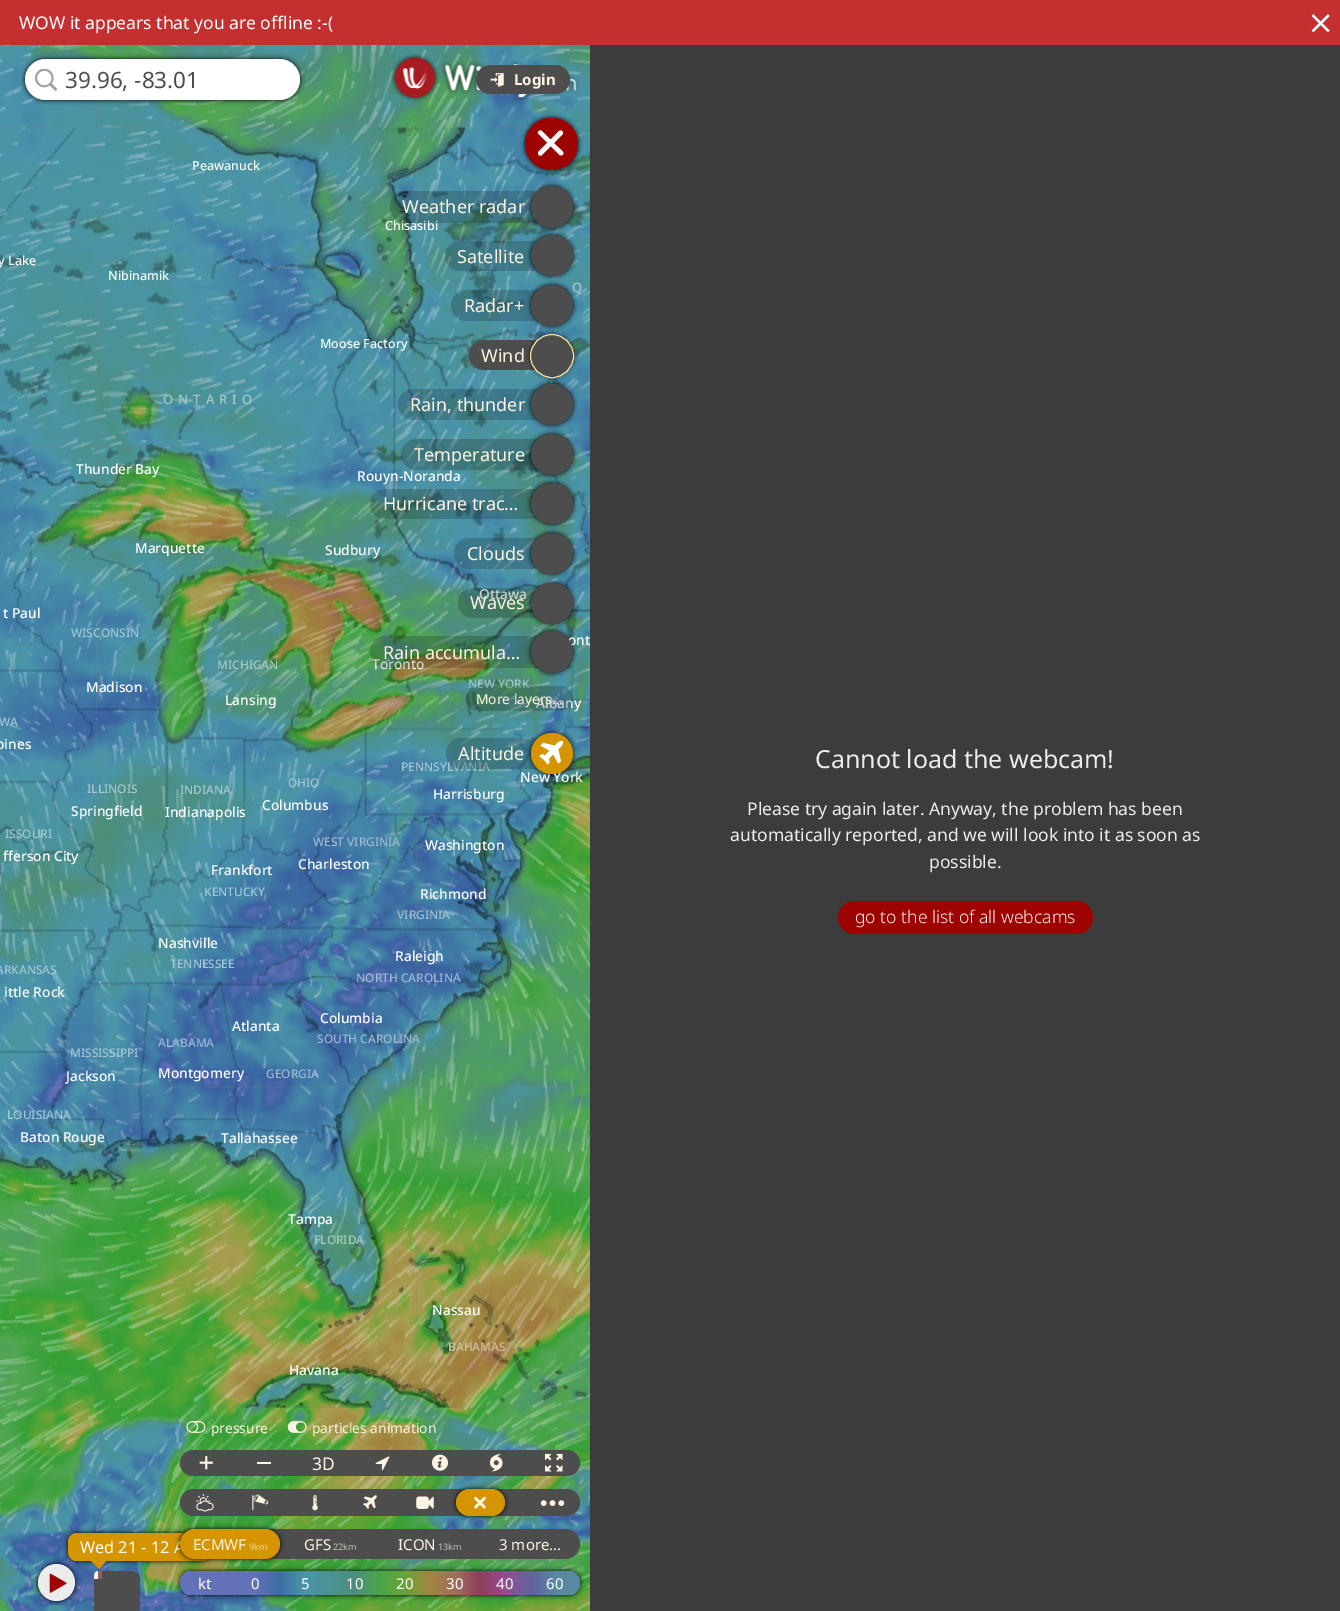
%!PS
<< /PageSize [1340 1611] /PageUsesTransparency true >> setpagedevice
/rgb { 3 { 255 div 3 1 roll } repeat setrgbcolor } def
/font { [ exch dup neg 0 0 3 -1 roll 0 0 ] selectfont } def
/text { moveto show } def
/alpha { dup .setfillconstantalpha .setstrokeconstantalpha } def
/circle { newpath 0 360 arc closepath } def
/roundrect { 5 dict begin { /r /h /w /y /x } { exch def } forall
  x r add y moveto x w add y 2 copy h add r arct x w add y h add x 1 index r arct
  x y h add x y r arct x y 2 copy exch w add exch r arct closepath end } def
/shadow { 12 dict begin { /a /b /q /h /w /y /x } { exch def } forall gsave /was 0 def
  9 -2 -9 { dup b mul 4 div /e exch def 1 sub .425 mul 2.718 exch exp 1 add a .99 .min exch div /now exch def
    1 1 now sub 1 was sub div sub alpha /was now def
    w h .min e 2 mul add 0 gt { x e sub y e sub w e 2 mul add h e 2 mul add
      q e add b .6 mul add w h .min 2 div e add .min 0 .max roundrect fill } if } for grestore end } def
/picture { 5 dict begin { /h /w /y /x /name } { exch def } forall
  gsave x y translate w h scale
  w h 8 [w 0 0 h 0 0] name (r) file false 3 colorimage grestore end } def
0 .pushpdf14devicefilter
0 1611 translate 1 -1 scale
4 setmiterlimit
128 128 128 rgb
0 0 1340 1611 rectfill
196 47 47 rgb
0 0 1340 45 rectfill
(img_01.rgb) 1311 14 19 19 picture
(img_28.rgb) 96 447 321 321 picture
(img_31.rgb) 96 767 321 321 picture
(img_27.rgb) 0 447 97 321 picture
(img_29.rgb) 416 447 174 321 picture
(img_25.rgb) 96 127 321 321 picture
(img_24.rgb) 0 127 97 321 picture
(img_21.rgb) 0 45 96 83 picture
(img_26.rgb) 416 127 174 321 picture
(img_22.rgb) 96 45 321 83 picture
(img_23.rgb) 416 45 174 83 picture
(img_30.rgb) 0 767 97 321 picture
(img_32.rgb) 416 767 174 321 picture
(img_34.rgb) 96 1087 321 321 picture
(img_33.rgb) 0 1087 97 321 picture
(img_35.rgb) 416 1087 174 321 picture
(img_37.rgb) 96 1407 321 204 picture
(img_36.rgb) 0 1407 97 204 picture
(img_38.rgb) 416 1407 174 204 picture
(img_39.rgb) 0 45 590 1566 picture
0 0 0 rgb
25 59 275 41 20.5 2.5 1 shadow
255 255 255 rgb
25 59 275 41 20.5 roundrect fill
(img_02.rgb) 35 69 23 22 picture
(img_03.rgb) 391 53 48 49 picture
(img_04.rgb) 441 61 139 40 picture
77 77 77 rgb
476 65 94 29 14.5 roundrect fill
(img_05.rgb) 490 73 14 14 picture
(img_44.rgb) 96 447 321 321 picture
(img_47.rgb) 96 767 321 321 picture
(img_45.rgb) 416 447 174 321 picture
(img_41.rgb) 96 127 321 321 picture
(img_42.rgb) 416 127 174 321 picture
0 0 0 rgb
525 118 53 52 26 2.5 1 shadow
157 3 0 rgb
525 118 53 52 26 roundrect fill
248 248 248 rgb
542 131 moveto 17 17 rlineto 1.5 1.5 5.5 4 4 6.5 rcurveto -1.5 1 rlineto -2 -0.5 rlineto -21.5 -21.5 rlineto -1 -2 2.5 -4 4 -2.5 rcurveto closepath fill
538.5 151.5 moveto 17 -17 rlineto 1.5 -1 4 -5.5 6.5 -3.5 rcurveto 1 1.5 rlineto 0 1.5 rlineto -21.5 21.5 rlineto -2.5 1 -4.5 -2 -3 -4 rcurveto closepath fill
0.18 alpha
0 0 0 rgb
460 241 moveto 89 0 rlineto 0 30 rlineto -89 0 rlineto -8.5 0 -15 -6.5 -15 -15 rcurveto 0 -8.5 6.5 -15 15 -15 rcurveto closepath fill
466.5 290 moveto 82.5 0 rlineto 0 31 rlineto -82.5 0 rlineto -8.5 0 -15.5 -7 -15.5 -15.5 rcurveto 0 -8.5 7 -15.5 15.5 -15.5 rcurveto closepath fill
1 alpha
531 285 42 41 20.5 2.5 1 shadow
77 77 77 rgb
531 285 42 41 20.5 roundrect fill
484 340 moveto 65 0 rlineto 0 30 rlineto -65 0 rlineto -8.5 0 -15 -6.5 -15 -15 rcurveto 0 -8.5 6.5 -15 15 -15 rcurveto closepath fill
0 0 0 rgb
531 335 42 41 20.5 2.5 1 shadow
77 77 77 rgb
531 335 42 41 20.5 roundrect fill
255 227 161 rgb
552 356 21.5 circle stroke
0.18 alpha
0 0 0 rgb
413.5 389 moveto 135.5 0 rlineto 0 31 rlineto -135.5 0 rlineto -8.5 0 -15.5 -7 -15.5 -15.5 rcurveto 0 -8.5 7 -15.5 15.5 -15.5 rcurveto closepath fill
1 alpha
531 384 42 41 20.5 2.5 1 shadow
77 77 77 rgb
531 384 42 41 20.5 roundrect fill
0.18 alpha
0 0 0 rgb
416.5 439 moveto 132.5 0 rlineto 0 31 rlineto -132.5 0 rlineto -8.5 0 -15.5 -7 -15.5 -15.5 rcurveto 0 -8.5 7 -15.5 15.5 -15.5 rcurveto closepath fill
1 alpha
531 434 42 41 20.5 2.5 1 shadow
77 77 77 rgb
531 434 42 41 20.5 roundrect fill
0.18 alpha
0 0 0 rgb
385 489 moveto 164 0 rlineto 0 30 rlineto -164 0 rlineto -8.5 0 -15 -6.5 -15 -15 rcurveto 0 -8.5 6.5 -15 15 -15 rcurveto closepath fill
1 alpha
531 483 42 41 20.5 2.5 1 shadow
77 77 77 rgb
531 483 42 41 20.5 roundrect fill
0.18 alpha
0 0 0 rgb
469.5 538 moveto 79.5 0 rlineto 0 31 rlineto -79.5 0 rlineto -8.5 0 -15.5 -7 -15.5 -15.5 rcurveto 0 -8.5 7 -15.5 15.5 -15.5 rcurveto closepath fill
1 alpha
531 533 42 41 20.5 2.5 1 shadow
77 77 77 rgb
531 533 42 41 20.5 roundrect fill
(img_07.rgb) 186 1421 20 12 picture
(img_08.rgb) 287 1421 20 12 picture
180 1450 400 26 13 roundrect fill
(img_09.rgb) 199 1456 14 14 picture
255 243 225 rgb
257 1462 14 2 rectfill
(img_10.rgb) 375 1456 15 15 picture
(img_11.rgb) 431 1454 18 17 picture
(img_12.rgb) 490 1454 13 18 picture
(img_13.rgb) 545 1453 18 19 picture
77 77 77 rgb
180 1489 400 27 13.5 roundrect fill
(img_14.rgb) 196 1494 18 18 picture
(img_15.rgb) 252 1494 17 17 picture
(img_16.rgb) 312 1495 6 16 picture
(img_17.rgb) 363 1495 14 14 picture
(img_18.rgb) 416 1496 18 13 picture
0 0 0 rgb
456 1489 49 27 13.5 2.5 1 shadow
212 149 0 rgb
456 1489 49 27 13.5 roundrect fill
(img_19.rgb) 474 1496 12 13 picture
(img_20.rgb) 540 1500 25 6 picture
0 0 0 rgb
180 1571 400 24 12 2.5 1 shadow
gsave 180 1571 400 24 12 roundrect clip newpath
<< /ShadingType 2 /ColorSpace /DeviceRGB /Coords [180 1583 580 1583] /Extend [true true] /Function << /FunctionType 3 /Domain [0 1] /Functions [<< /FunctionType 2 /Domain [0 1] /C0 [0.384 0.443 0.722] /C1 [0.384 0.443 0.722] /N 1 >> << /FunctionType 2 /Domain [0 1] /C0 [0.384 0.443 0.722] /C1 [0.239 0.431 0.639] /N 1 >> << /FunctionType 2 /Domain [0 1] /C0 [0.239 0.431 0.639] /C1 [0.29 0.58 0.667] /N 1 >> << /FunctionType 2 /Domain [0 1] /C0 [0.29 0.58 0.667] /C1 [0.29 0.573 0.58] /N 1 >> << /FunctionType 2 /Domain [0 1] /C0 [0.29 0.573 0.58] /C1 [0.302 0.557 0.486] /N 1 >> << /FunctionType 2 /Domain [0 1] /C0 [0.302 0.557 0.486] /C1 [0.298 0.643 0.298] /N 1 >> << /FunctionType 2 /Domain [0 1] /C0 [0.298 0.643 0.298] /C1 [0.404 0.643 0.212] /N 1 >> << /FunctionType 2 /Domain [0 1] /C0 [0.404 0.643 0.212] /C1 [0.635 0.529 0.251] /N 1 >> << /FunctionType 2 /Domain [0 1] /C0 [0.635 0.529 0.251] /C1 [0.635 0.427 0.361] /N 1 >> << /FunctionType 2 /Domain [0 1] /C0 [0.635 0.427 0.361] /C1 [0.553 0.247 0.361] /N 1 >> << /FunctionType 2 /Domain [0 1] /C0 [0.553 0.247 0.361] /C1 [0.592 0.294 0.569] /N 1 >> << /FunctionType 2 /Domain [0 1] /C0 [0.592 0.294 0.569] /C1 [0.373 0.392 0.627] /N 1 >> << /FunctionType 2 /Domain [0 1] /C0 [0.373 0.392 0.627] /C1 [0.357 0.533 0.631] /N 1 >> << /FunctionType 2 /Domain [0 1] /C0 [0.357 0.533 0.631] /C1 [0.357 0.533 0.631] /N 1 >>] /Bounds [0.19 0.25 0.31 0.38 0.44 0.5 0.56 0.62 0.69 0.75 0.81 0.88 0.94] /Encode [0 1 0 1 0 1 0 1 0 1 0 1 0 1 0 1 0 1 0 1 0 1 0 1 0 1 0 1] >> >> shfill grestore
(img_40.rgb) 0 128 96 320 picture
(img_43.rgb) 0 448 96 320 picture
(img_46.rgb) 0 768 96 320 picture
(img_48.rgb) 416 767 174 269 picture
(img_49.rgb) 0 1088 96 98 picture
(img_50.rgb) 96 1087 321 321 picture
(img_51.rgb) 416 1246 173 162 picture
38 1564 37 37 18.5 2.5 1 shadow
236 236 236 rgb
56.5 1582.5 18.5 circle fill
0 0 0 rgb
68 1533 143 28 9 2.5 1 shadow
212 149 0 rgb
68 1533 143 28 9 roundrect fill
91 1561 moveto 15 0 rlineto -7 8 rlineto closepath fill
77 77 77 rgb
102 1571 moveto 30 0 rlineto 4.5 0 8 3.5 8 8 rcurveto -46 0 rlineto 0 -4.5 3.5 -8 8 -8 rcurveto closepath fill
248 248 248 rgb
99 1571 moveto 0 8 rlineto -5 0 rlineto 0 -3 rlineto 0 -3 2 -5 5 -5 rcurveto closepath fill
148 96 81 rgb
98 1571 4 8 rectfill
77 77 77 rgb
94 1579 46 32 rectfill
(img_52.rgb) 49 1573 18 20 picture
/NotoSans-Regular 17.5 font
255 255 255 rgb
(WOW it appears that you are offline :-\() 19 29 text
/NotoSans-Regular 22.5 font
77 77 77 rgb
(39.96, -83.01) 65 88 text
/NotoSans-Bold 15 font
255 243 225 rgb
(Login) 514 85 text
/NotoSans-Regular 18 font
(Satellite) 457 263 text
(Radar+) 464 312 text
(Wind) 481 362 text
(Rain, thunder) 410 411 text
(Temperature) 414 461 text
(Hurricane trac…) 383 510 text
(Clouds) 467 560 text
/NotoSans-Regular 13.75 font
(pressure) 211 1433 text
(particles animation) 312 1433 text
/NotoSans-Regular 17.5 font
(3D) 312 1470 text
/NotoSans-Regular 15 font
255 255 255 rgb
(kt) 198 1589 text
(0) 251 1589 text
(5) 301 1589 text
(10) 346 1589 text
(20) 396 1589 text
(30) 446 1589 text
(40) 496 1589 text
(60) 546 1589 text
/NotoSans-Medium 12.5 font
(y Lake) -2 265 text
(Peawanuck) 192 170 text
(Chisasibi) 385 230 text
0.18 alpha
0 0 0 rgb
406 191 moveto 143 0 rlineto 0 32 rlineto -143 0 rlineto -9 0 -16 -7 -16 -16 rcurveto 0 -9 7 -16 16 -16 rcurveto closepath fill
1 alpha
531 186 42 42 21 2.5 1 shadow
77 77 77 rgb
552 207 21 circle fill
0 0 0 rgb
531 235 42 41 20.5 2.5 1 shadow
77 77 77 rgb
531 235 42 41 20.5 roundrect fill
/NotoSans-Regular 18 font
255 243 225 rgb
(Weather radar) 402 213 text
/NotoSans-Medium 12.5 font
255 255 255 rgb
(Nibinamik) 108 280 text
(Moose Factory) 320 348 text
/NotoSans-Medium 13 font
166 201 201 rgb
163 404 moveto 5 0 (ONTARIO) ashow
572 292 moveto 5 0 (Q) ashow
/NotoSans-Medium 13.75 font
255 255 255 rgb
(t Paul) 3 618 text
/NotoSans-Medium 11.9 font
163 197 212 rgb
(WA) -1 726 text
/NotoSans-Medium 13.75 font
255 255 255 rgb
(oines) -4 749 text
(Thunder Bay) 76 474 text
(Rouyn-Noranda) 357 481 text
(Marquette) 135 553 text
(Sudbury) 325 555 text
/NotoSans-Medium 11.9 font
163 197 212 rgb
(WISCONSIN) 71 637 text
167 201 195 rgb
(MICHIGAN) 217 669 text
/NotoSans-Medium 13.75 font
255 255 255 rgb
(Toronto) 372 669 text
0.18 alpha
0 0 0 rgb
386 636 moveto 163 0 rlineto 0 32 rlineto -163 0 rlineto -9 0 -16 -7 -16 -16 rcurveto 0 -9 7 -16 16 -16 rcurveto closepath fill
/NotoSans-Regular 18 font
1 alpha
255 243 225 rgb
(Rain accumula…) 383 659 text
/NotoSans-Medium 13.75 font
255 255 255 rgb
(Madison) 86 692 text
(Lansing) 225 705 text
(Ottawa) 479 599 text
0.18 alpha
0 0 0 rgb
473 588 moveto 76 0 rlineto 0 30 rlineto -76 0 rlineto -8.5 0 -15 -6.5 -15 -15 rcurveto 0 -8.5 6.5 -15 15 -15 rcurveto closepath fill
1 alpha
531 583 42 41 20.5 2.5 1 shadow
77 77 77 rgb
531 583 42 41 20.5 roundrect fill
0 0 0 rgb
531 631 42 42 21 2.5 1 shadow
/NotoSans-Regular 18 font
255 243 225 rgb
(Waves) 470 609 text
/NotoSans-Medium 13.75 font
255 255 255 rgb
(ont) 568 645 text
60 60 60 rgb
590 45 750 1566 rectfill
157 3 0 rgb
838 901 255 33 16.5 roundrect fill
/NotoSans-Light 17.5 font
248 248 248 rgb
(go to the list of all webcams) 855 923 text
/NotoSans-Regular 17.5 font
236 236 236 rgb
(possible.) 929 868 text
(automatically reported, and we will look into it as soon as) 730 841 text
(Please try again later. Anyway, the problem has been) 747 815 text
/NotoSans-Regular 25 font
(Cannot load the webcam!) 815 768 text
77 77 77 rgb
552 652 21 circle fill
/NotoSans-Medium 11.9 font
167 201 195 rgb
(NEW YORK) 468 688 text
/NotoSans-Medium 13.75 font
255 255 255 rgb
(Albany) 536 708 text
0.18 alpha
0 0 0 rgb
466 686 107 25 12.5 roundrect fill
/NotoSans-Regular 13.75 font
1 alpha
255 243 225 rgb
(More layers...) 476 704 text
/NotoSans-Medium 11.9 font
166 201 201 rgb
(ISSOURI) 5 838 text
/NotoSans-Medium 13.75 font
255 255 255 rgb
(fferson City) 3 861 text
/NotoSans-Medium 11.9 font
163 197 212 rgb
(ARKANSAS) -4 974 text
/NotoSans-Medium 13.75 font
255 255 255 rgb
(ittle Rock) 4 997 text
(Jackson) 66 1081 text
/NotoSans-Medium 11.9 font
163 197 212 rgb
(OHIO) 288 787 text
166 201 201 rgb
(ILLINOIS) 87 793 text
(INDIANA) 180 794 text
/NotoSans-Medium 13.75 font
255 255 255 rgb
(Springfield) 71 816 text
(Indianapolis) 165 817 text
(Columbus) 262 810 text
/NotoSans-Medium 11.9 font
159 184 210 rgb
(WEST VIRGINIA) 313 846 text
/NotoSans-Medium 13.75 font
255 255 255 rgb
(Frankfort) 211 875 text
(Charleston) 298 869 text
/NotoSans-Medium 11.9 font
163 197 212 rgb
(KENTUCKY) 204 896 text
/NotoSans-Medium 13.75 font
255 255 255 rgb
(Nashville) 158 948 text
/NotoSans-Medium 11.9 font
163 197 212 rgb
(TENNESSEE) 170 968 text
159 184 210 rgb
(NORTH CAROLINA) 356 982 text
/NotoSans-Medium 13.75 font
255 255 255 rgb
(Columbia) 320 1023 text
(Atlanta) 232 1031 text
/NotoSans-Medium 11.9 font
159 184 210 rgb
(ALABAMA) 158 1047 text
(SOUTH CAROLINA) 317 1043 text
163 197 212 rgb
(MISSISSIPPI) 70 1057 text
/NotoSans-Medium 13.75 font
255 255 255 rgb
(Montgomery) 158 1078 text
/NotoSans-Medium 11.9 font
159 184 210 rgb
(GEORGIA) 266 1078 text
163 197 212 rgb
(PENNSYLVANIA) 401 771 text
0.18 alpha
0 0 0 rgb
461.5 738 moveto 87.5 0 rlineto 0 31 rlineto -87.5 0 rlineto -8.5 0 -15.5 -7 -15.5 -15.5 rcurveto 0 -8.5 7 -15.5 15.5 -15.5 rcurveto closepath fill
1 alpha
531 733 42 41 20.5 2.5 1 shadow
/NotoSans-Regular 18 font
255 243 225 rgb
(Altitude) 458 760 text
/NotoSans-Medium 13.75 font
255 255 255 rgb
(New York) 520 782 text
212 149 0 rgb
531 733 42 41 20.5 roundrect fill
(img_06.rgb) 539 740 25 25 picture
255 255 255 rgb
(Harrisburg) 433 799 text
(Washington) 425 850 text
(Richmond) 420 899 text
/NotoSans-Medium 11.9 font
161 190 211 rgb
(VIRGINIA) 397 919 text
/NotoSans-Medium 13.75 font
255 255 255 rgb
(Raleigh) 395 961 text
/NotoSans-Medium 11.9 font
163 197 212 rgb
(LOUISIANA) 7 1119 text
/NotoSans-Medium 13.75 font
255 255 255 rgb
(Baton Rouge) 20 1142 text
(Tallahassee) 221 1143 text
(Tampa) 288 1224 text
/NotoSans-Medium 11.9 font
167 201 195 rgb
(FLORIDA) 314 1244 text
/NotoSans-Medium 13.75 font
255 255 255 rgb
(Havana) 289 1375 text
(Nassau) 432 1315 text
/NotoSans-Medium 11.9 font
205 193 162 rgb
(BAHAMAS) 448 1351 text
/NotoSans-Regular 16.25 font
255 255 255 rgb
(Wed 21 - 12 A) 80 1553 text
77 77 77 rgb
180 1529 400 30 15 roundrect fill
/NotoSans-Regular 15 font
255 243 225 rgb
(3 more...) 499 1550 text
/NotoSans-Regular 9 font
202 193 181 rgb
(13km) 438 1550 text
/NotoSans-Regular 15 font
255 243 225 rgb
(ICON) 398 1550 text
/NotoSans-Regular 9 font
202 193 181 rgb
(22km) 333 1550 text
/NotoSans-Regular 15 font
255 243 225 rgb
(GFS) 304 1550 text
0 0 0 rgb
180 1529 100 30 15 2.5 1 shadow
212 149 0 rgb
180 1529 100 30 15 roundrect fill
/NotoSans-Regular 9 font
242 215 158 rgb
(9km) 249 1550 text
/NotoSans-Regular 15 font
255 243 225 rgb
(ECMWF) 193 1550 text
.poppdf14devicefilter showpage
